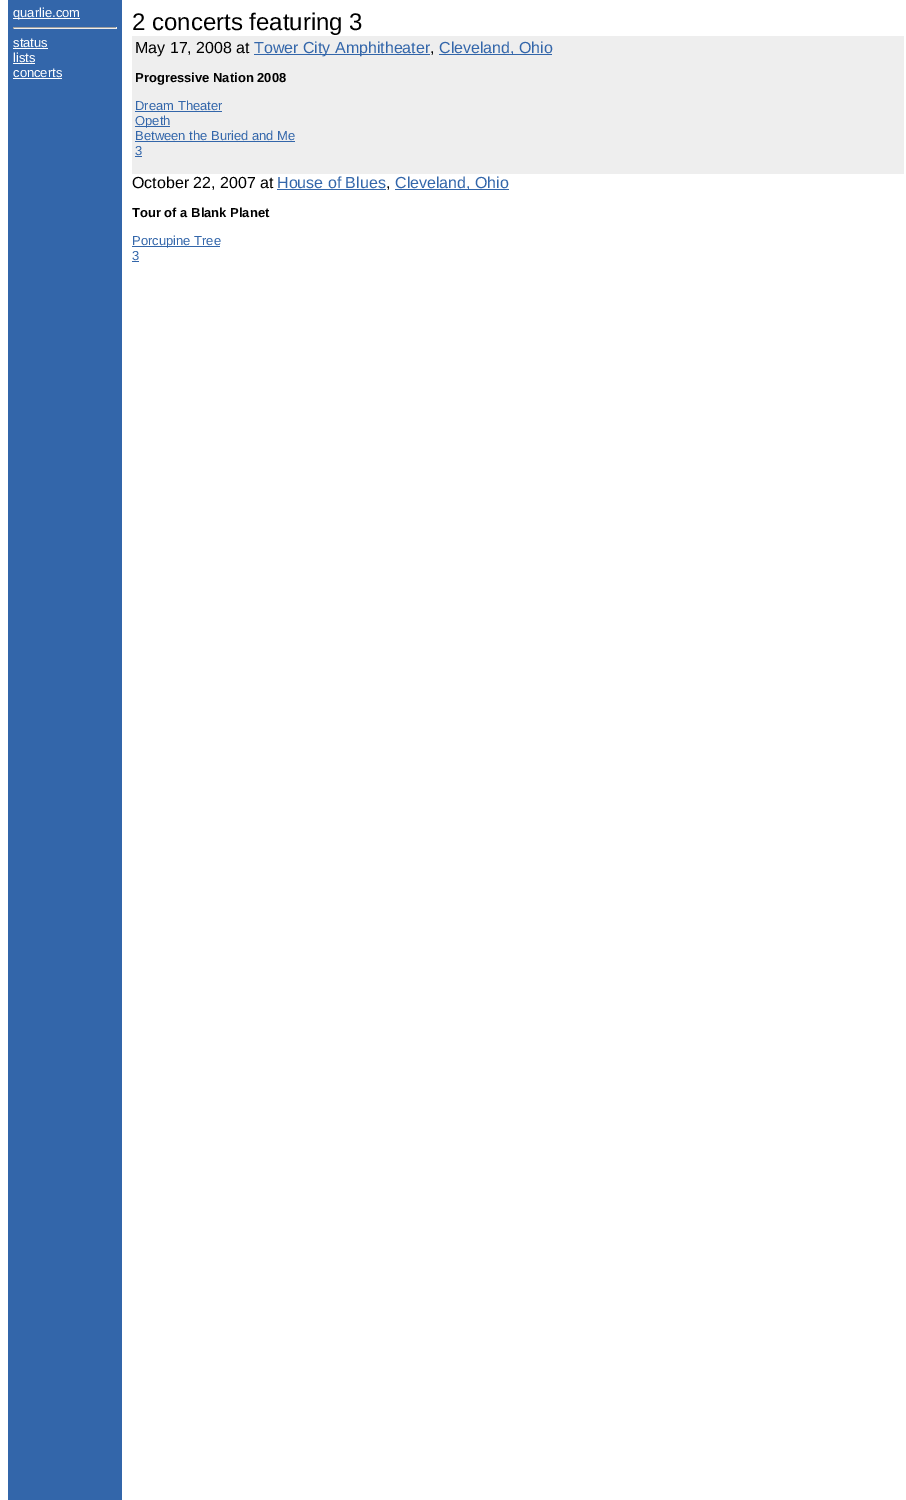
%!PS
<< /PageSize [906 1500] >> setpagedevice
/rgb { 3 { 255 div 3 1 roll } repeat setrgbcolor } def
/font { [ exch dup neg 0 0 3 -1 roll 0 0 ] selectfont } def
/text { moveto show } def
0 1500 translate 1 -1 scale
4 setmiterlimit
255 255 255 rgb
0 0 906 1500 rectfill
51 102 170 rgb
8 0 114 1500 rectfill
255 255 255 rgb
13 18 67 1 rectfill
159 159 159 rgb
13 27 104 1 rectfill
238 238 238 rgb
116 27 1 2 rectfill
13 28 104 1 rectfill
159 159 159 rgb
13 27 1 2 rectfill
255 255 255 rgb
13 48 35 1 rectfill
13 63 22 1 rectfill
13 78 49 1 rectfill
238 238 238 rgb
132 36 772 138 rectfill
51 102 170 rgb
254 54 176 1 rectfill
439 54 113 1 rectfill
135 111 87 1 rectfill
135 126 35 1 rectfill
135 141 160 1 rectfill
135 156 7 1 rectfill
277 189 109 1 rectfill
395 189 114 1 rectfill
132 246 88 1 rectfill
132 261 7 1 rectfill
/LiberationSans-Regular 13 font
255 255 255 rgb
(quarlie.com) 13 17 text
(status) 13 47 text
(lists) 13 62 text
(concerts) 13 77 text
/LiberationSans-Regular 24 font
0 0 0 rgb
(2 concerts featuring 3) 132 30 text
/LiberationSans-Regular 16 font
(May 17, 2008 at) 135 53 text
51 102 170 rgb
(Tower City Amphitheater) 254 53 text
0 0 0 rgb
(,) 430 53 text
51 102 170 rgb
(Cleveland, Ohio) 439 53 text
/LiberationSans-Bold 13 font
0 0 0 rgb
(Progressive Nation 2008) 135 82 text
/LiberationSans-Regular 13 font
51 102 170 rgb
(Dream Theater) 135 110 text
(Opeth) 135 125 text
(Between the Buried and Me) 135 140 text
(3) 135 155 text
/LiberationSans-Regular 16 font
0 0 0 rgb
(October 22, 2007 at) 132 188 text
51 102 170 rgb
(House of Blues) 277 188 text
0 0 0 rgb
(,) 386 188 text
51 102 170 rgb
(Cleveland, Ohio) 395 188 text
/LiberationSans-Bold 13 font
0 0 0 rgb
(Tour of a Blank Planet) 132 217 text
/LiberationSans-Regular 13 font
51 102 170 rgb
(Porcupine Tree) 132 245 text
(3) 132 260 text
showpage
